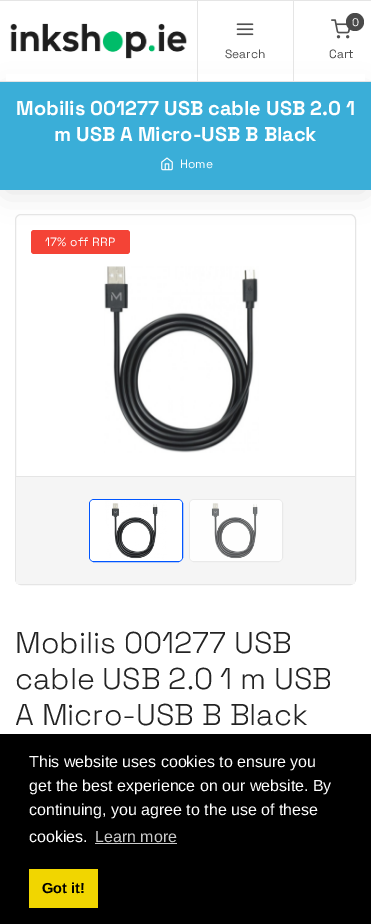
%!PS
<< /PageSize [371 924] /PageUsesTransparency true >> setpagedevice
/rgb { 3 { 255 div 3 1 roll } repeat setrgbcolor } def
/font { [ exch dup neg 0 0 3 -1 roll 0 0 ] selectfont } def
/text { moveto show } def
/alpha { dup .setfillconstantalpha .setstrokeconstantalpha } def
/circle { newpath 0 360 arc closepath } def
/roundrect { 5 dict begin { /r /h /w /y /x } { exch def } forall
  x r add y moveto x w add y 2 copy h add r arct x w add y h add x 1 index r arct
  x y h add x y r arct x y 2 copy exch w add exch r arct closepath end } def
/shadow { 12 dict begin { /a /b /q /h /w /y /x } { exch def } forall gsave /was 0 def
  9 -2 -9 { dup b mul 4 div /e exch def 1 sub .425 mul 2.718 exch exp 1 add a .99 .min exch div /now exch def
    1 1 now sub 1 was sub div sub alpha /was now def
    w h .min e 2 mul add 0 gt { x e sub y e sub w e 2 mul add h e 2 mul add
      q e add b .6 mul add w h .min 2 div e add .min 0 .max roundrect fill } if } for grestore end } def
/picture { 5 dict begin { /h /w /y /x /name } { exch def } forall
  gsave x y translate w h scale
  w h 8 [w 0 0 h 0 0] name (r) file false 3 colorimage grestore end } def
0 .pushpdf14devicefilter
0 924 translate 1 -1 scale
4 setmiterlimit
255 255 255 rgb
0 0 371 924 rectfill
0 0 0 rgb
6 95 359 96 0 15 0.12 shadow
255 255 255 rgb
6 74 359 7 rectfill
229 229 229 rgb
0 0 371 1 rectfill
0 81 371 1 rectfill
(img_01.rgb) 10 23 177 36 picture
197 1 1 80 rectfill
(img_02.rgb) 236 23 18 13 picture
293 1 1 80 rectfill
(img_03.rgb) 331 19 20 20 picture
74 74 74 rgb
355 22 9 circle fill
58 174 216 rgb
0 82 371 108 rectfill
(img_04.rgb) 161 157 12 14 picture
229 229 229 rgb
15.5 214.5 340 370 5.5 roundrect stroke
244 67 54 rgb
31 230 99 24 3 roundrect fill
(img_05.rgb) 104 266 155 187 picture
245 245 245 rgb
16 477 339 107 rectfill
229 229 229 rgb
16 476 339 1 rectfill
0 85 255 rgb
89.5 499.5 93 62 4.5 roundrect stroke
(img_06.rgb) 90 500 92 61 picture
233 233 233 rgb
189.5 499.5 93 62 4.5 roundrect stroke
(img_07.rgb) 190 500 92 61 picture
0 0 0 rgb
0 734 371 190 rectfill
204 204 204 rgb
95 843 82 1 rectfill
241 214 0 rgb
29 869 69 39 rectfill
/SpaceGrotesk-Regular 12 font
80 80 80 rgb
(Search) 225 58 text
/SpaceGrotesk-Regular 11 font
255 255 255 rgb
(0) 352 26 text
/SpaceGrotesk-Regular 12 font
80 80 80 rgb
(Cart) 329 58 text
/SpaceGrotesk-Bold 20 font
255 255 255 rgb
(Mobilis 001277 USB cable USB 2.0 1) 16 115 text
(m USB A Micro-USB B Black) 54 141 text
/SpaceGrotesk-Regular 12 font
(Home) 180 168 text
45 246 moveto 0.25 0 (17% off RRP) ashow
/SpaceGrotesk-Light 30 font
35 35 35 rgb
(Mobilis 001277 USB) 15 653 text
(cable USB 2.0 1 m USB) 15 689 text
(A Micro-USB B Black) 15 725 text
/LiberationSans-Regular 16 font
255 255 255 rgb
(This website uses cookies to ensure you) 29 767 text
(get the best experience on our website. By) 29 791 text
(continuing, you agree to the use of these) 29 815 text
(cookies.) 29 842 text
204 204 204 rgb
(Learn more) 95 842 text
/LiberationSans-Bold 14.5 font
0 0 0 rgb
(Got it!) 42 893 text
.poppdf14devicefilter showpage
